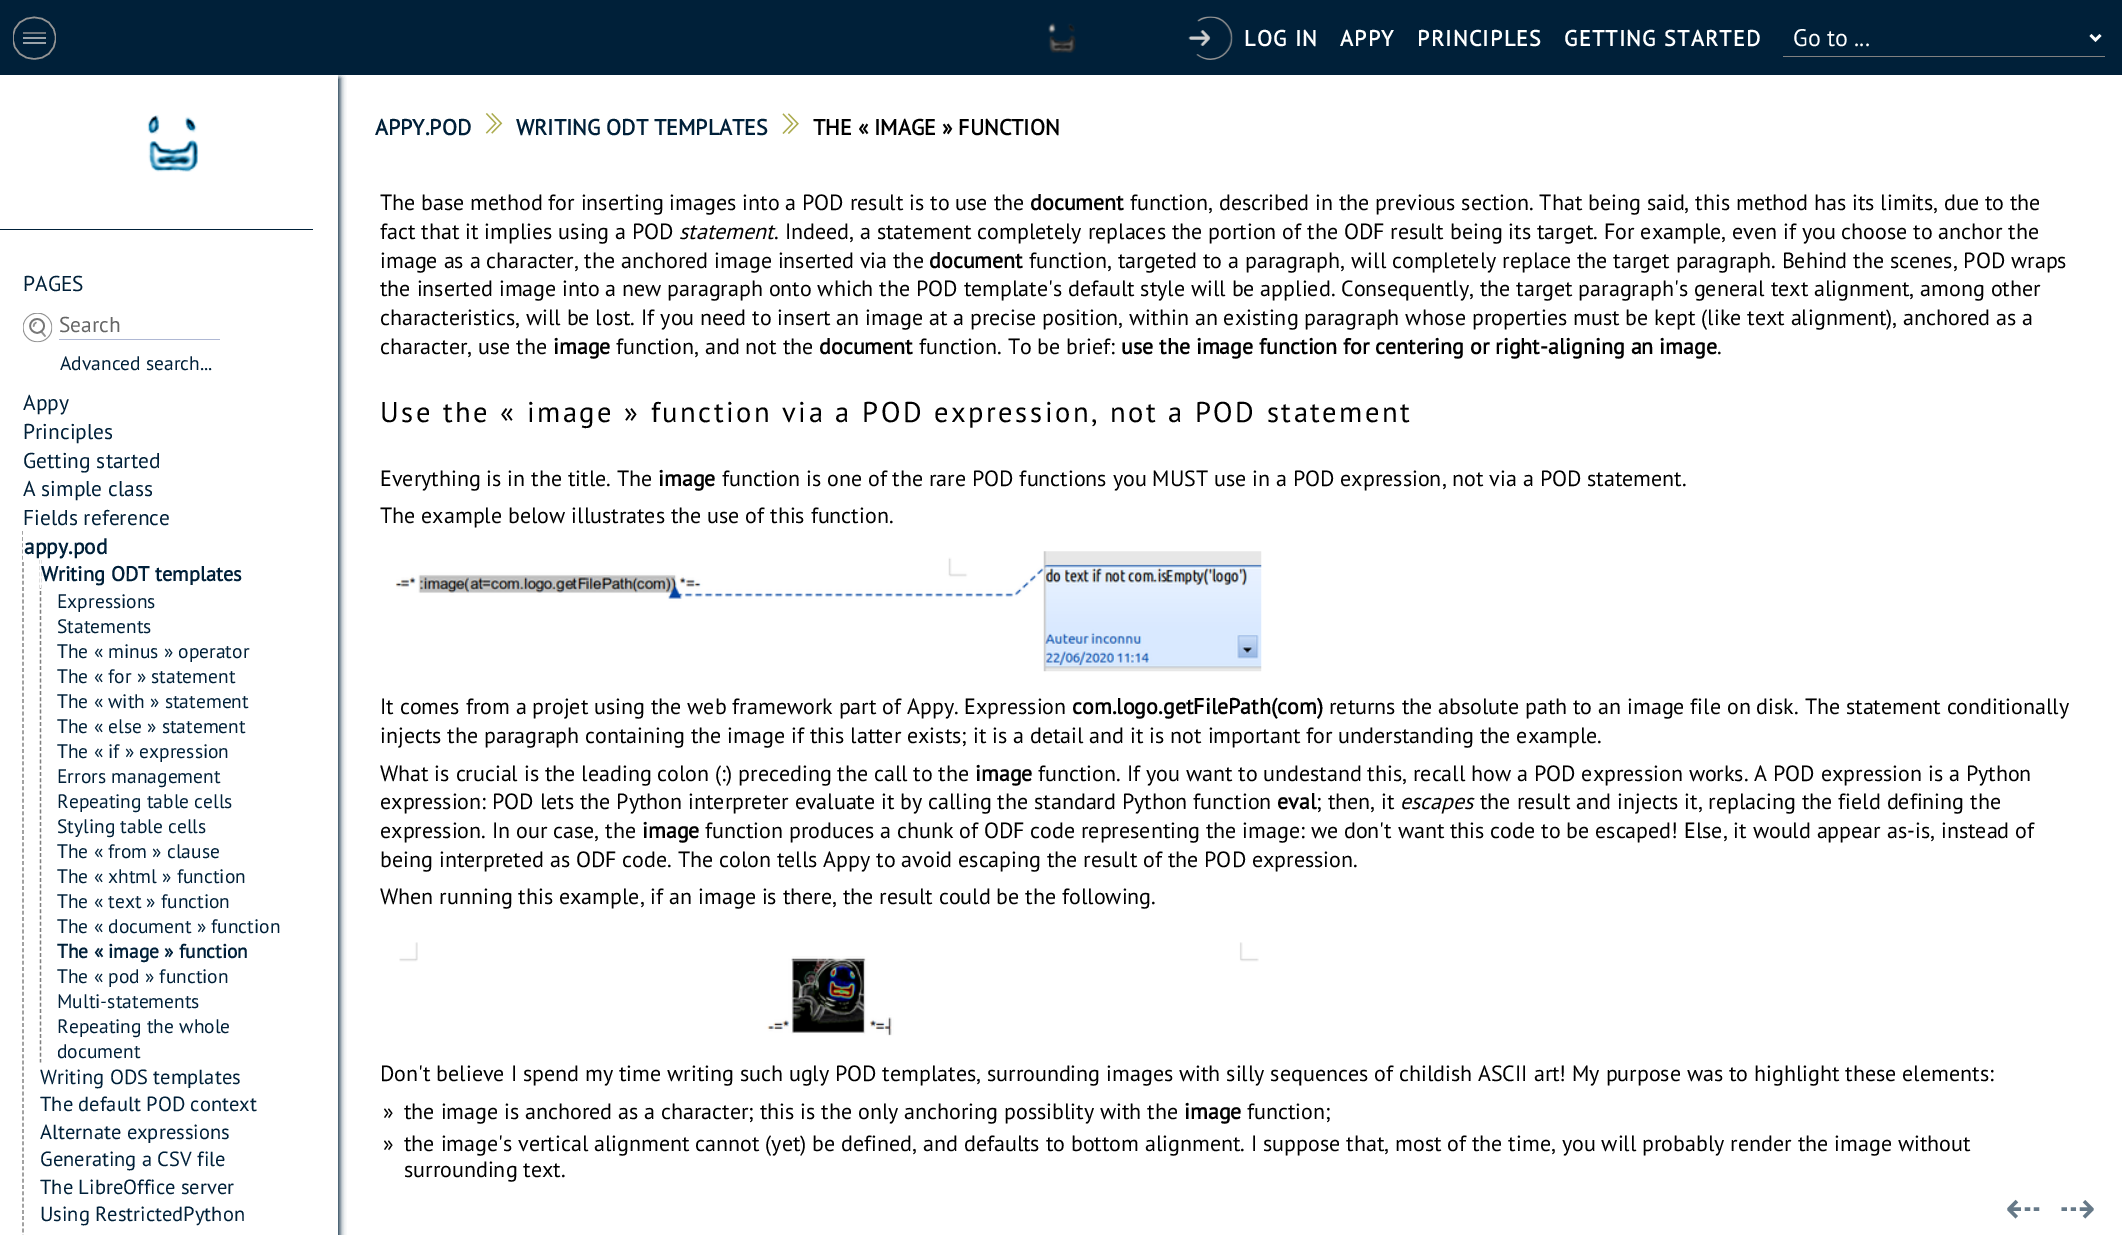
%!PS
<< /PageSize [2122 1235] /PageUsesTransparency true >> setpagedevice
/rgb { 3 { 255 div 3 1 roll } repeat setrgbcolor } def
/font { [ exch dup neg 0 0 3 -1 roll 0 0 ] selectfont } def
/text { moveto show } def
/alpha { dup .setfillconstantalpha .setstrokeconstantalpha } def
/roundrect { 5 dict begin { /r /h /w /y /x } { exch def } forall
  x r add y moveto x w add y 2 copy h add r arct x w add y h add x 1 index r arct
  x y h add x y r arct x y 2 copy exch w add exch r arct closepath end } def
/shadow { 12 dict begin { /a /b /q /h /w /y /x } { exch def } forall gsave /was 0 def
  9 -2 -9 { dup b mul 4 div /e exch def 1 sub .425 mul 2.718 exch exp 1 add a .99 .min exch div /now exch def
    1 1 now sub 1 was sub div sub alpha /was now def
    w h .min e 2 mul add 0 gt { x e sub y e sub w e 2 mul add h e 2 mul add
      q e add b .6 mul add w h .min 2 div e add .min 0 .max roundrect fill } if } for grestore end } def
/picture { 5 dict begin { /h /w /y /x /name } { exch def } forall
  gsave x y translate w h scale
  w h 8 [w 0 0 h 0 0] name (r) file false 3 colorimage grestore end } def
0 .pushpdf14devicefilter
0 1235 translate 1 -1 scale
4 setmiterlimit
255 255 255 rgb
0 0 2122 1235 rectfill
0 32 57 rgb
0 0 2122 75 rectfill
(img_01.rgb) 1048 22 28 31 picture
gsave
13 16 43 44 rectclip
147 147 147 rgb
1.5 setlinewidth
1 setlinecap
1 setlinejoin
55.5 38 moveto 0 28 -42.5 28 -42.5 0 rcurveto 0 -27.5 42.5 -27.5 42.5 0 rcurveto closepath stroke
grestore
110 118 125 rgb
23 32 23 2 rectfill
155 163 169 rgb
23 37 23 2 rectfill
23 42 23 2 rectfill
(img_02.rgb) 1188 16 45 44 picture
128 128 128 rgb
1783 56 322 1 rectfill
255 255 255 rgb
2.5 setlinewidth
2090.5 35 moveto 5 5 rlineto 5 -5 rlineto stroke
gsave
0 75 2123 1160 rectclip
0 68 moveto 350 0 rlineto 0 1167 rlineto -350 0 rlineto closepath 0 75 moveto 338 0 rlineto 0 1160 rlineto -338 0 rlineto closepath eoclip newpath
0 32 57 rgb
3 78 337 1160 0 3 1 shadow
grestore
0 32 57 rgb
0 229 313 1 rectfill
(img_03.rgb) 147 115 52 57 picture
(img_04.rgb) 23 313 30 30 picture
175 184 212 rgb
59 339 161 1 rectfill
128 128 128 rgb
1.2 setlinewidth
[3.75 2.48] 0 setdash
23 531 moveto 0 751.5 rlineto stroke
255 255 255 rgb
23 529 1 31 rectfill
128 128 128 rgb
[3.75 2.49] 0 setdash
40.5 560 moveto 0 502.5 rlineto stroke
(img_05.rgb) 485 113 18 21 picture
(img_06.rgb) 782 113 17 21 picture
(img_07.rgb) 395 551 867 121 picture
(img_08.rgb) 399 942 860 94 picture
/PTSans-Bold 22 font
255 255 255 rgb
1244 46 moveto 1.25 0 (LOG IN) ashow
1340 46 moveto 1.25 0 (APPY) ashow
1417 46 moveto 1.25 0 (PRINCIPLES) ashow
1564 46 moveto 1.25 0 (GETTING STARTED) ashow
/PTSans-Regular 24 font
(Go to ...) 1793 46 text
/PTSans-Regular 21.5 font
0 32 57 rgb
(PAGES) 23 291 text
102 102 102 rgb
(Search) 59 332 text
/PTSans-Regular 19.5 font
0 32 57 rgb
(Advanced search...) 60 370 text
/PTSans-Regular 21.5 font
(Appy) 23 410 text
(Principles) 23 439 text
(Getting started) 23 468 text
(A simple class) 23 496 text
(Fields reference) 23 525 text
/PTSans-Bold 21.5 font
(appy.pod) 24 554 text
/PTSans-Bold 20.5 font
(Writing ODT templates) 41 581 text
255 255 255 rgb
40 558 1 30 rectfill
/PTSans-Regular 19.5 font
0 32 57 rgb
(Expressions) 57 608 text
(Statements) 57 633 text
(The « minus » operator) 57 658 text
(The « for » statement) 57 683 text
(The « with » statement) 57 708 text
(The « else » statement) 57 733 text
(The « if » expression) 57 758 text
(Errors management) 57 783 text
(Repeating table cells) 57 808 text
(Styling table cells) 57 833 text
(The « from » clause) 57 858 text
(The « xhtml » function) 57 883 text
(The « text » function) 57 908 text
(The « document » function) 57 933 text
/PTSans-Bold 19.5 font
(The « image » function) 57 958 text
/PTSans-Regular 19.5 font
(The « pod » function) 57 983 text
(Multi-statements) 57 1008 text
(Repeating the whole) 57 1033 text
(document) 57 1058 text
/PTSans-Regular 20.5 font
(Writing ODS templates) 40 1084 text
(The default POD context) 40 1111 text
(Alternate expressions) 40 1139 text
(Generating a CSV file) 40 1166 text
(The LibreOffice server) 40 1194 text
(Using RestrictedPython) 40 1221 text
/PTSans-Bold 22 font
(APPY.POD) 375 135 text
(WRITING ODT TEMPLATES) 516 135 text
0 0 0 rgb
(THE « IMAGE » FUNCTION) 813 135 text
/PTSans-Regular 22 font
(The base method for inserting images into a POD result is to use the) 380 210 text
/PTSans-Bold 22 font
(document) 1030 210 text
/PTSans-Regular 22 font
(function, described in the previous section. That being said, this method has its limits, due to the) 1130 210 text
(fact that it implies using a POD) 380 239 text
/PTSans-Italic 22 font
(statement) 679 239 text
/PTSans-Regular 22 font
(. Indeed, a statement completely replaces the portion of the ODF result being its target. For example, even if you choose to anchor the) 774 239 text
(image as a character, the anchored image inserted via the) 380 268 text
/PTSans-Bold 22 font
(document) 929 268 text
/PTSans-Regular 22 font
(function, targeted to a paragraph, will completely replace the target paragraph. Behind the scenes, POD wraps) 1029 268 text
(the inserted image into a new paragraph onto which the POD template's default style will be applied. Consequently, the target paragraph's general text alignment, among other) 380 296 text
(characteristics, will be lost. If you need to insert an image at a precise position, within an existing paragraph whose properties must be kept \(like text alignment\), anchored as a) 380 325 text
(character, use the) 380 354 text
/PTSans-Bold 22 font
(image) 553 354 text
/PTSans-Regular 22 font
(function, and not the) 616 354 text
/PTSans-Bold 22 font
(document) 819 354 text
/PTSans-Regular 22 font
(function. To be brief:) 919 354 text
/PTSans-Bold 22 font
(use the image function for centering or right-aligning an image) 1121 354 text
/PTSans-Regular 22 font
(.) 1717 354 text
/PTSans-Regular 28.6 font
380 422 moveto 2.5 0 (Use the « image » function via a POD expression, not a POD statement) ashow
/PTSans-Regular 22 font
(Everything is in the title. The) 380 486 text
/PTSans-Bold 22 font
(image) 658 486 text
/PTSans-Regular 22 font
(function is one of the rare POD functions you MUST use in a POD expression, not via a POD statement.) 722 486 text
(The example below illustrates the use of this function.) 380 523 text
(It comes from a projet using the web framework part of Appy. Expression) 380 714 text
/PTSans-Bold 22 font
(com.logo.getFilePath\(com\)) 1072 714 text
/PTSans-Regular 22 font
(returns the absolute path to an image file on disk. The statement conditionally) 1329 714 text
(injects the paragraph containing the image if this latter exists; it is a detail and it is not important for understanding the example.) 380 743 text
(What is crucial is the leading colon \(:\) preceding the call to the) 380 781 text
/PTSans-Bold 22 font
(image) 975 781 text
/PTSans-Regular 22 font
(function. If you want to undestand this, recall how a POD expression works. A POD expression is a Python) 1038 781 text
(expression: POD lets the Python interpreter evaluate it by calling the standard Python function) 380 809 text
/PTSans-Bold 22 font
(eval) 1277 809 text
/PTSans-Regular 22 font
(; then, it) 1316 809 text
/PTSans-Italic 22 font
(escapes) 1400 809 text
/PTSans-Regular 22 font
(the result and injects it, replacing the field defining the) 1480 809 text
(expression. In our case, the) 380 838 text
/PTSans-Bold 22 font
(image) 642 838 text
/PTSans-Regular 22 font
(function produces a chunk of ODF code representing the image: we don't want this code to be escaped! Else, it would appear as-is, instead of) 705 838 text
(being interpreted as ODF code. The colon tells Appy to avoid escaping the result of the POD expression.) 380 867 text
(When running this example, if an image is there, the result could be the following.) 380 904 text
(Don't believe I spend my time writing such ugly POD templates, surrounding images with silly sequences of childish ASCII art! My purpose was to highlight these elements:) 380 1081 text
(») 383 1119 text
(the image is anchored as a character; this is the only anchoring possiblity with the) 404 1119 text
/PTSans-Bold 22 font
(image) 1184 1119 text
/PTSans-Regular 22 font
(function;) 1247 1119 text
(») 383 1151 text
(the image's vertical alignment cannot \(yet\) be defined, and defaults to bottom alignment. I suppose that, most of the time, you will probably render the image without) 404 1151 text
(surrounding text.) 404 1177 text
/DejaVuSans-Regular 44 font
102 121 136 rgb
(⇠) 2005 1223 text
(⇢) 2059 1223 text
.poppdf14devicefilter showpage
